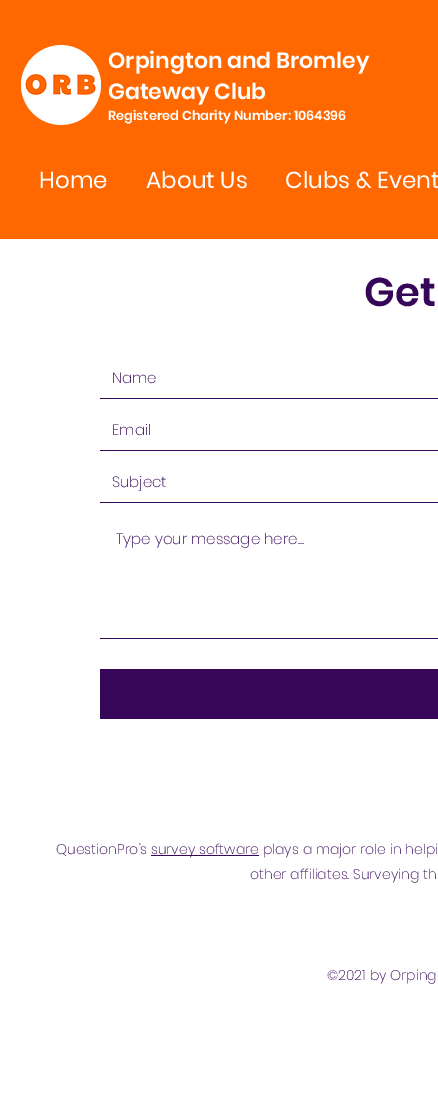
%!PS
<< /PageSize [438 1098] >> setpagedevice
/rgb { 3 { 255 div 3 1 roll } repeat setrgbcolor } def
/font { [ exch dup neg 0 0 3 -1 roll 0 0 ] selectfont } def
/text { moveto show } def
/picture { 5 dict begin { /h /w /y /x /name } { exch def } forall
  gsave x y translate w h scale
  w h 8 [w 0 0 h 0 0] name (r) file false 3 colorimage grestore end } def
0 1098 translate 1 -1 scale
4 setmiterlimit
255 255 255 rgb
0 0 438 1098 rectfill
255 103 0 rgb
0 0 438 239 rectfill
(img_01.rgb) 21 45 80 80 picture
54 6 88 rgb
100 398 338 1 rectfill
100 450 338 1 rectfill
100 502 338 1 rectfill
100 638 338 1 rectfill
100 669 338 50 rectfill
151 855 108 1 rectfill
/Poppins-SemiBold 22 font
255 255 255 rgb
(Orpington and Bromley) 108 68 text
(Gateway Club) 108 99 text
/Poppins-SemiBold 13 font
(Registered Charity Number: 1064396) 108 120 text
/Poppins-Regular 23 font
(Home) 39 188 text
(About Us) 146 188 text
(Clubs & Event) 285 188 text
/Poppins-SemiBold 40 font
54 6 88 rgb
(Get) 364 306 text
/Poppins-ExtraLight 15 font
(Name) 112 383 text
(Email) 112 435 text
(Subject) 112 487 text
(Type your message here...) 116 544 text
/Poppins-ExtraLight 14 font
(QuestionPro's) 56 854 text
(survey software plays a major role in helpi) 151 854 text
(other affiliates. Surveying th) 250 879 text
(©2021 by Orping) 327 980 text
showpage
